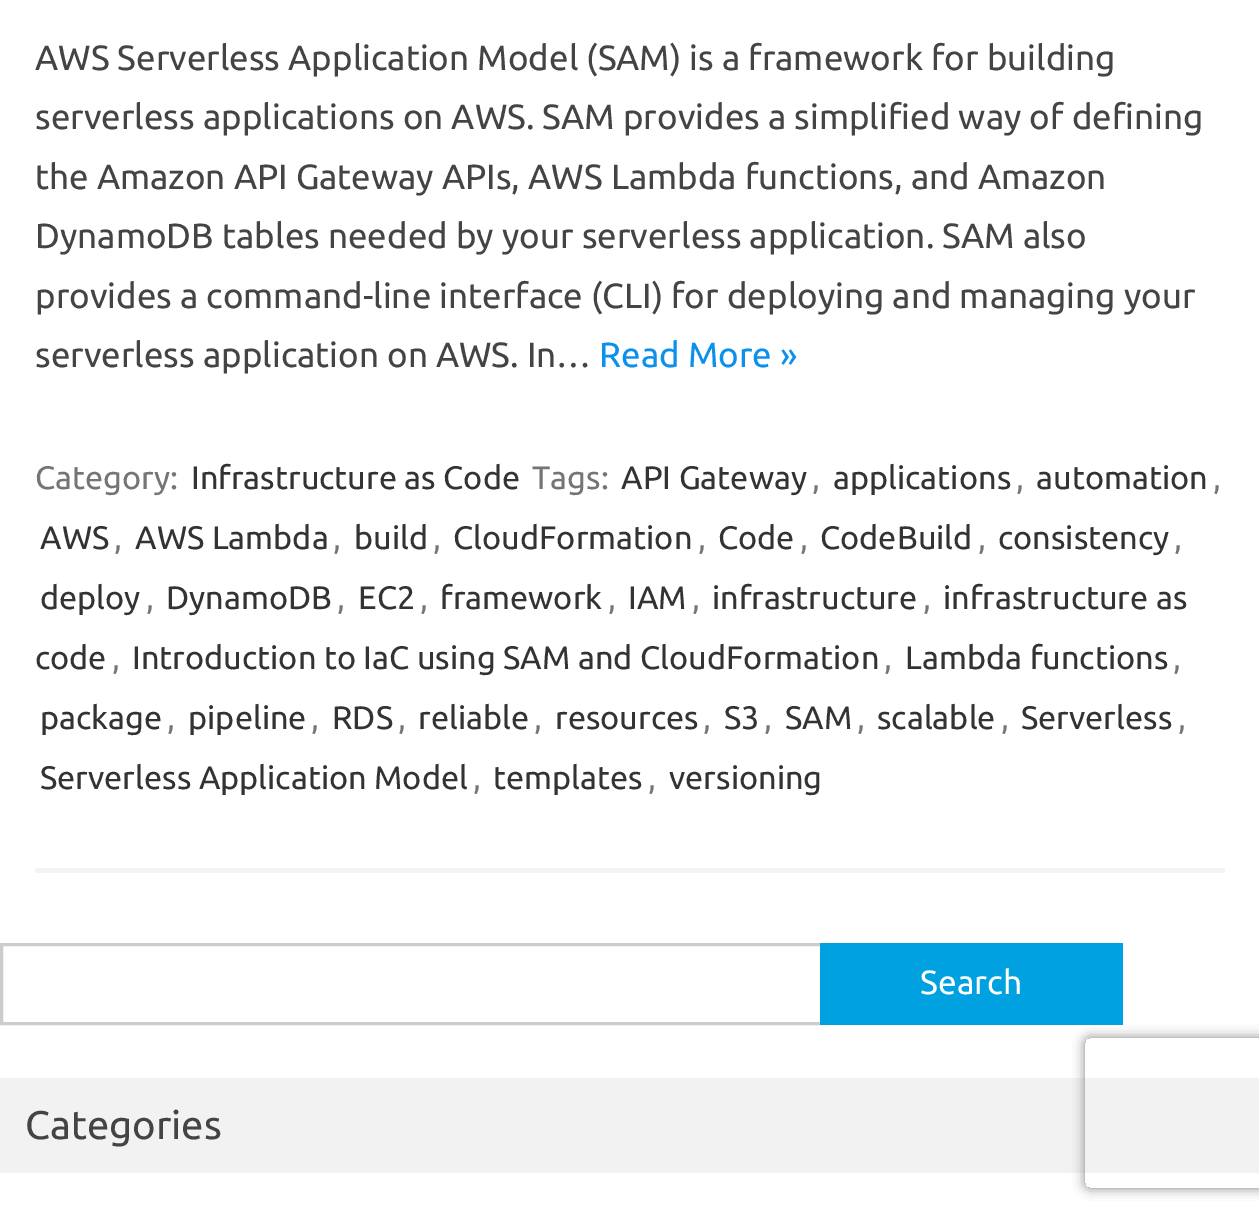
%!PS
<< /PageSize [1259 1221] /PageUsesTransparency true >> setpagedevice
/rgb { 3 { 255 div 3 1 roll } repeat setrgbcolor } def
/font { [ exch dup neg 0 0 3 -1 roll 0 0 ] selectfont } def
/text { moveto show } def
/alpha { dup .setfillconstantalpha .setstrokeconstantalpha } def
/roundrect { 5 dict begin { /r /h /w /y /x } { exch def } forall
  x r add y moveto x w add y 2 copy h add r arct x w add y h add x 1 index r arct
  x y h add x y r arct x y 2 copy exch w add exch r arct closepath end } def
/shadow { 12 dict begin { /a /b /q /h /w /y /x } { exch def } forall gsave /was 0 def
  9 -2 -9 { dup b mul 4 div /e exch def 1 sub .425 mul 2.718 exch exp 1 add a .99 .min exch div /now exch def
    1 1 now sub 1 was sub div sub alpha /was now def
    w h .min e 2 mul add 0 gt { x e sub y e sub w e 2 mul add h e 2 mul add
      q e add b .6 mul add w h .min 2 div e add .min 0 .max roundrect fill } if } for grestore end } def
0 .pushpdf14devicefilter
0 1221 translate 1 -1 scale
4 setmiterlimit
255 255 255 rgb
0 0 1259 1221 rectfill
243 243 243 rgb
35 868 1190 5 rectfill
204 204 204 rgb
3 setlinewidth
1.5 944.5 820 79 rectstroke
0 161 224 rgb
820 943 303 82 rectfill
242 242 242 rgb
0 1078 1259 95 rectfill
gsave
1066 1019 moveto 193 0 rlineto 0 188 rlineto -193 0 rlineto closepath 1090 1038 moveto 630 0 rlineto 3 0 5 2 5 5 rcurveto 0 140 rlineto 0 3 -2 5 -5 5 rcurveto -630 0 rlineto -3 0 -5 -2 -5 -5 rcurveto 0 -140 rlineto 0 -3 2 -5 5 -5 rcurveto closepath eoclip newpath
128 128 128 rgb
1085 1038 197 150 5 6 1 shadow
grestore
/Ubuntu-Regular 35 font
68 68 68 rgb
(AWS Serverless Application Model \(SAM\) is a framework for building) 35 70 text
(serverless applications on AWS. SAM provides a simplified way of defining) 35 129 text
(the Amazon API Gateway APIs, AWS Lambda functions, and Amazon) 35 189 text
(DynamoDB tables needed by your serverless application. SAM also) 35 248 text
(provides a command-line interface \(CLI\) for deploying and managing your) 35 308 text
(serverless application on AWS. In…) 35 367 text
11 145 234 rgb
(Read More ») 599 367 text
/Ubuntu-Regular 32.5 font
117 117 117 rgb
(Category:) 35 489 text
51 51 51 rgb
(Infrastructure as Code) 191 489 text
117 117 117 rgb
(Tags:) 532 489 text
51 51 51 rgb
(API Gateway) 621 489 text
117 117 117 rgb
(,) 812 489 text
51 51 51 rgb
(applications) 833 489 text
117 117 117 rgb
(,) 1016 489 text
51 51 51 rgb
(automation) 1036 489 text
117 117 117 rgb
(,) 1213 489 text
51 51 51 rgb
(AWS) 40 549 text
117 117 117 rgb
(,) 114 549 text
51 51 51 rgb
(AWS Lambda) 135 549 text
117 117 117 rgb
(,) 333 549 text
51 51 51 rgb
(build) 354 549 text
117 117 117 rgb
(,) 433 549 text
51 51 51 rgb
(CloudFormation) 453 549 text
117 117 117 rgb
(,) 698 549 text
51 51 51 rgb
(Code) 718 549 text
117 117 117 rgb
(,) 800 549 text
51 51 51 rgb
(CodeBuild) 820 549 text
117 117 117 rgb
(,) 978 549 text
51 51 51 rgb
(consistency) 998 549 text
117 117 117 rgb
(,) 1174 549 text
51 51 51 rgb
(deploy) 40 609 text
(DynamoDB) 166 609 text
(EC2) 358 609 text
(framework) 440 609 text
(IAM) 628 609 text
(infrastructure) 712 609 text
(infrastructure as) 943 609 text
117 117 117 rgb
(,) 146 609 text
(,) 337 609 text
(,) 420 609 text
(,) 608 609 text
(,) 692 609 text
(,) 923 609 text
51 51 51 rgb
(code) 35 669 text
117 117 117 rgb
(,) 112 669 text
51 51 51 rgb
(Introduction to IaC using SAM and CloudFormation) 132 669 text
117 117 117 rgb
(,) 884 669 text
51 51 51 rgb
(Lambda functions) 905 669 text
117 117 117 rgb
(,) 1173 669 text
51 51 51 rgb
(package) 40 729 text
117 117 117 rgb
(,) 167 729 text
51 51 51 rgb
(pipeline) 188 729 text
117 117 117 rgb
(,) 311 729 text
51 51 51 rgb
(RDS) 332 729 text
117 117 117 rgb
(,) 398 729 text
51 51 51 rgb
(reliable) 418 729 text
117 117 117 rgb
(,) 534 729 text
51 51 51 rgb
(resources) 555 729 text
117 117 117 rgb
(,) 703 729 text
51 51 51 rgb
(S3) 724 729 text
117 117 117 rgb
(,) 764 729 text
51 51 51 rgb
(SAM) 785 729 text
117 117 117 rgb
(,) 857 729 text
51 51 51 rgb
(scalable) 877 729 text
117 117 117 rgb
(,) 1001 729 text
51 51 51 rgb
(Serverless) 1021 729 text
117 117 117 rgb
(,) 1178 729 text
51 51 51 rgb
(Serverless Application Model) 40 789 text
117 117 117 rgb
(,) 473 789 text
51 51 51 rgb
(templates) 493 789 text
117 117 117 rgb
(,) 648 789 text
51 51 51 rgb
(versioning) 669 789 text
/Ubuntu-Regular 33.5 font
255 255 255 rgb
(Search) 920 994 text
/Ubuntu-Regular 40 font
68 68 68 rgb
(Categories) 25 1139 text
.poppdf14devicefilter showpage
